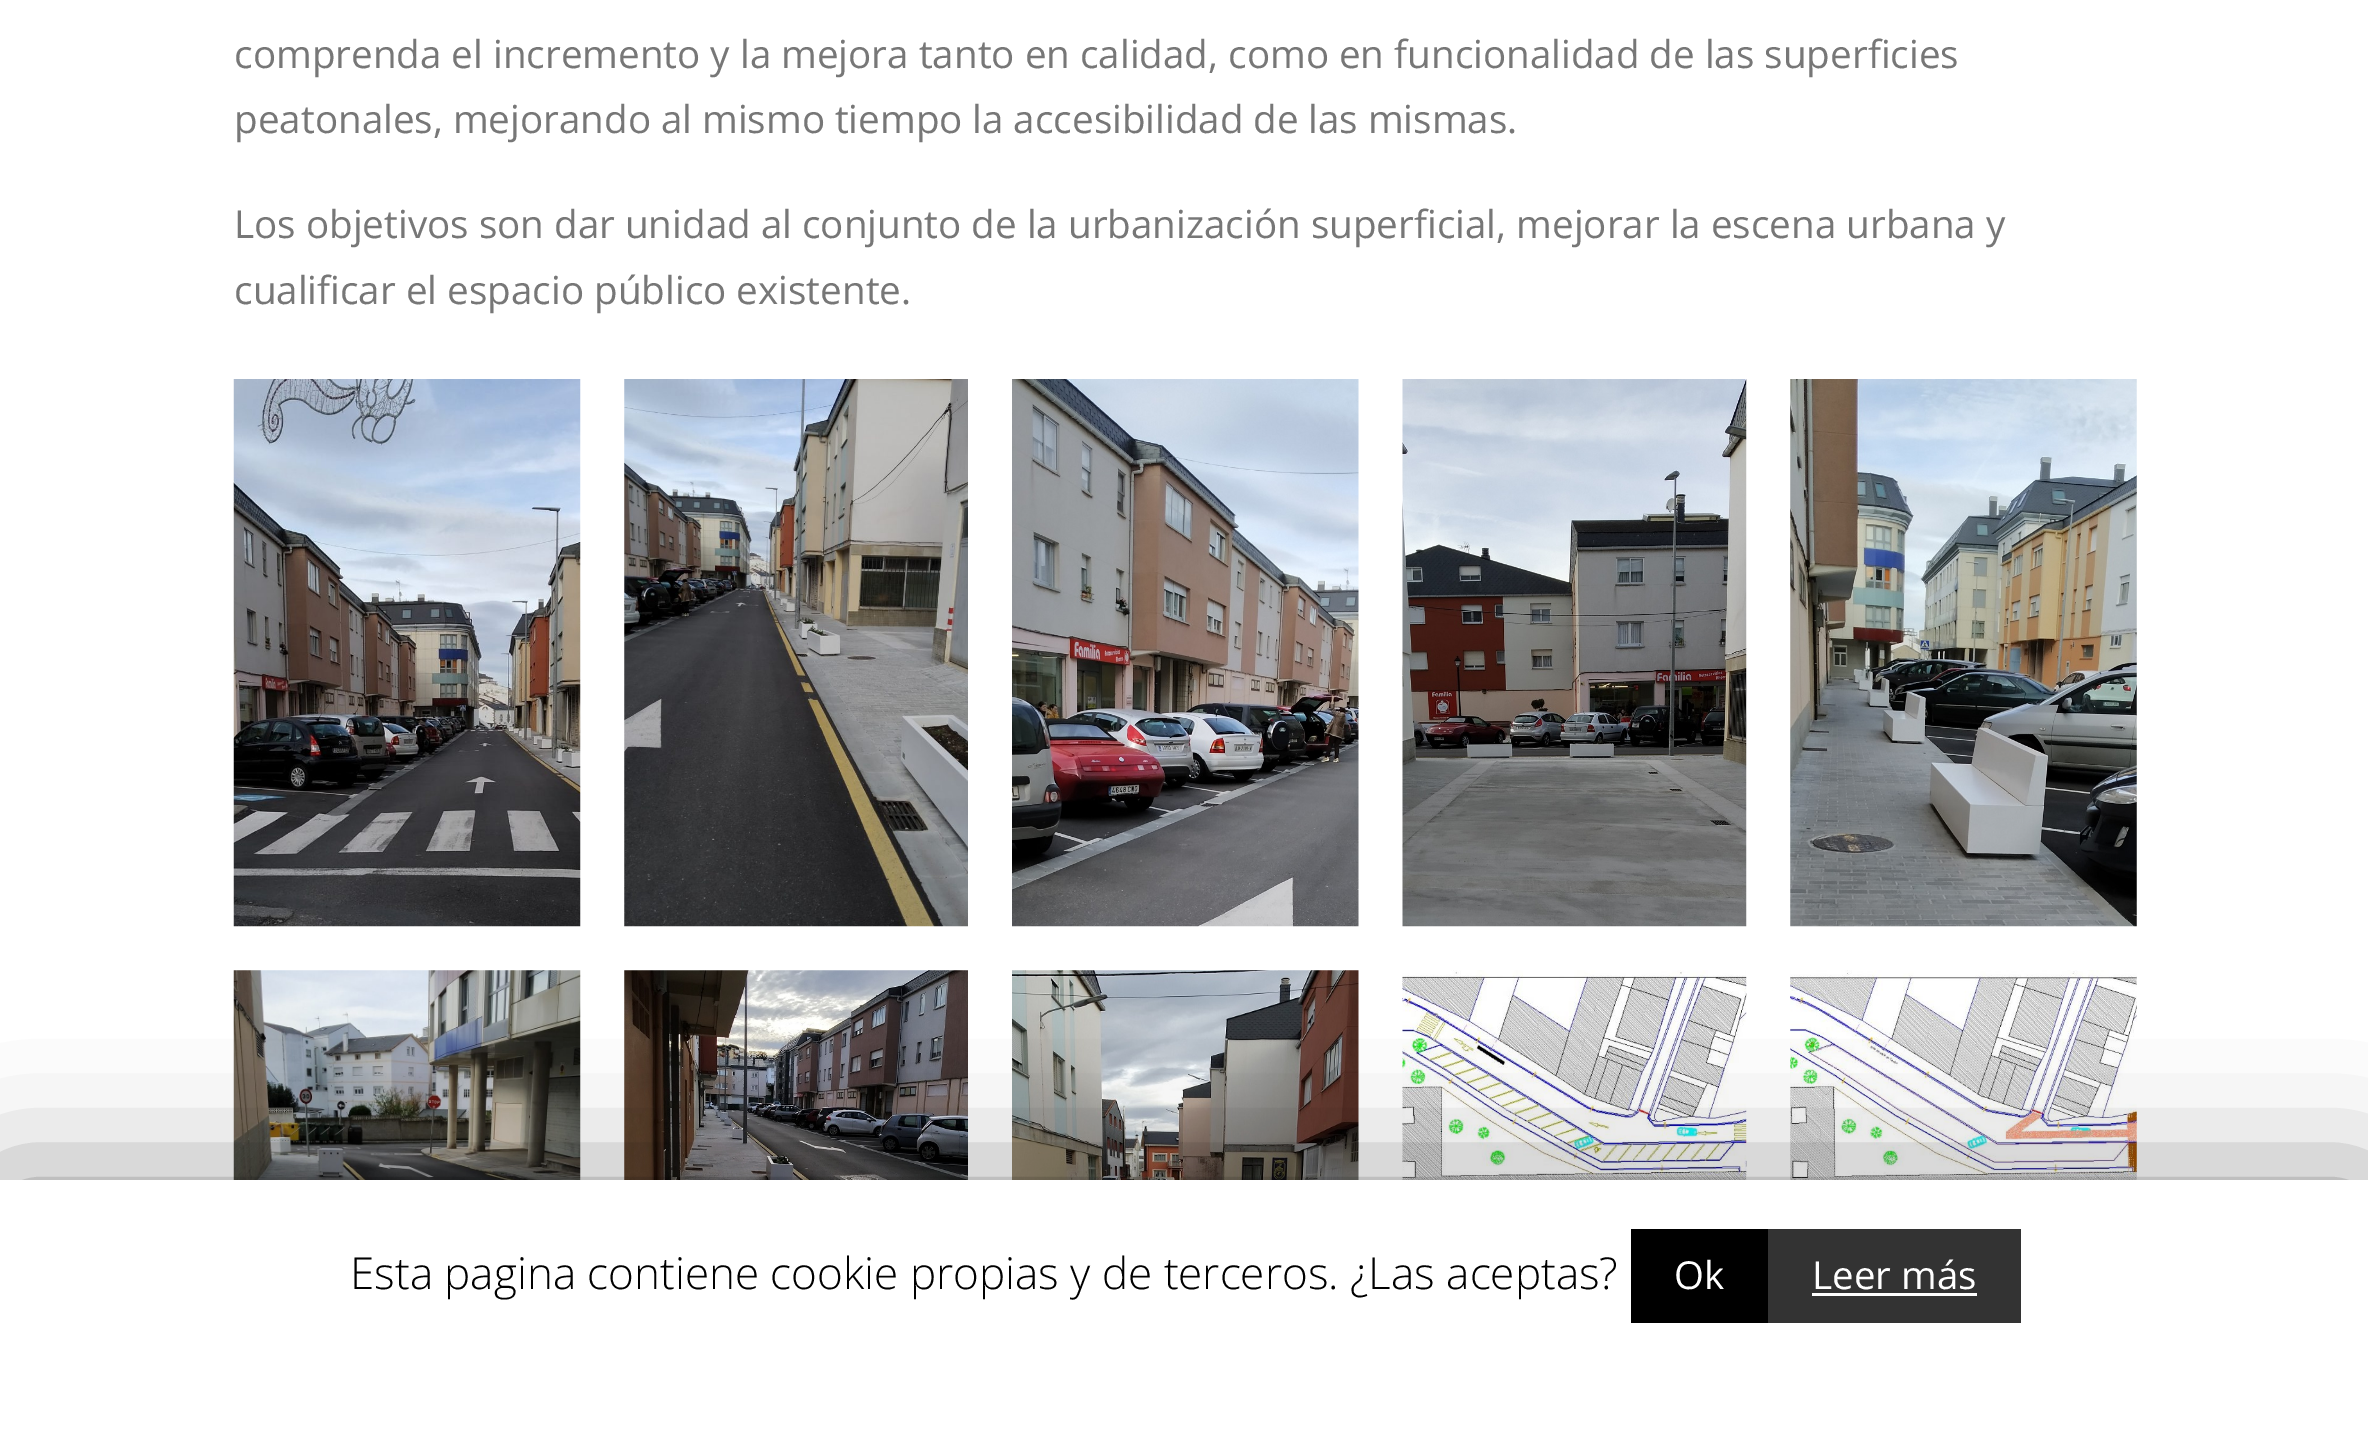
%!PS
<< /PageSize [2368 1435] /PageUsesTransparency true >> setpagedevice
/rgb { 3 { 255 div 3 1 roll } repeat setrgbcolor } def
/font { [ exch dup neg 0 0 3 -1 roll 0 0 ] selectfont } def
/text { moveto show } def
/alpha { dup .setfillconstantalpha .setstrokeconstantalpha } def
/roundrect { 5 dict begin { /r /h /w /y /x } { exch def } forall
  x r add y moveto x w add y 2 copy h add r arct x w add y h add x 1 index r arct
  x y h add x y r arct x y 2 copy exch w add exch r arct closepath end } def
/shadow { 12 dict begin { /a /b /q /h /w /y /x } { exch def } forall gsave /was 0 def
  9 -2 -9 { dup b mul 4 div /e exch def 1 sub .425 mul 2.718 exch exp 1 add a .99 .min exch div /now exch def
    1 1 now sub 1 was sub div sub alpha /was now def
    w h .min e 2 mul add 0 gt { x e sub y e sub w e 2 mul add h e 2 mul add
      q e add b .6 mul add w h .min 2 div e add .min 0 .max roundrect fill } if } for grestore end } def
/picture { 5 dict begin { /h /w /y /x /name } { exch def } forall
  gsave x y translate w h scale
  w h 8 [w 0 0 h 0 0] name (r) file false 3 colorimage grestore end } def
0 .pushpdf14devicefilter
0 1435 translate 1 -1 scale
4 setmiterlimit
255 255 255 rgb
0 0 2368 1435 rectfill
(img_01.rgb) 233 379 348 548 picture
(img_02.rgb) 624 379 344 548 picture
(img_03.rgb) 1012 379 347 548 picture
(img_04.rgb) 1402 379 345 548 picture
(img_05.rgb) 1790 379 347 548 picture
(img_06.rgb) 233 970 348 210 picture
(img_07.rgb) 624 970 344 210 picture
(img_08.rgb) 1012 970 347 210 picture
(img_09.rgb) 1402 970 345 210 picture
(img_10.rgb) 1790 970 347 210 picture
0 0 0 rgb
0 1194 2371 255 0 69 0.5 shadow
255 255 255 rgb
0 1180 2368 255 rectfill
0 0 0 rgb
1631 1229 137 94 rectfill
51 51 51 rgb
1768 1229 253 94 rectfill
255 255 255 rgb
1812 1293 165 3 rectfill
/OpenSans-Regular 38.65 font
119 119 119 rgb
234 68 moveto -0.1 0 32 (comprenda el incremento y la mejora tanto en calidad, como en funcionalidad de las superficies) widthshow
234 133 moveto -0.25 0 32 (peatonales, mejorando al mismo tiempo la accesibilidad de las mismas.) widthshow
234 238 moveto -0.1 0 32 (Los objetivos son dar unidad al conjunto de la urbanización superficial, mejorar la escena urbana y) widthshow
(cualificar el espacio público existente.) 234 304 text
/OpenSans-Light 44 font
0 0 0 rgb
(Esta pagina contiene cookie propias y de terceros. ¿Las aceptas?) 350 1289 text
/OpenSans-Regular 38.5 font
255 255 255 rgb
(Ok) 1674 1289 text
(Leer más) 1812 1289 text
.poppdf14devicefilter showpage
